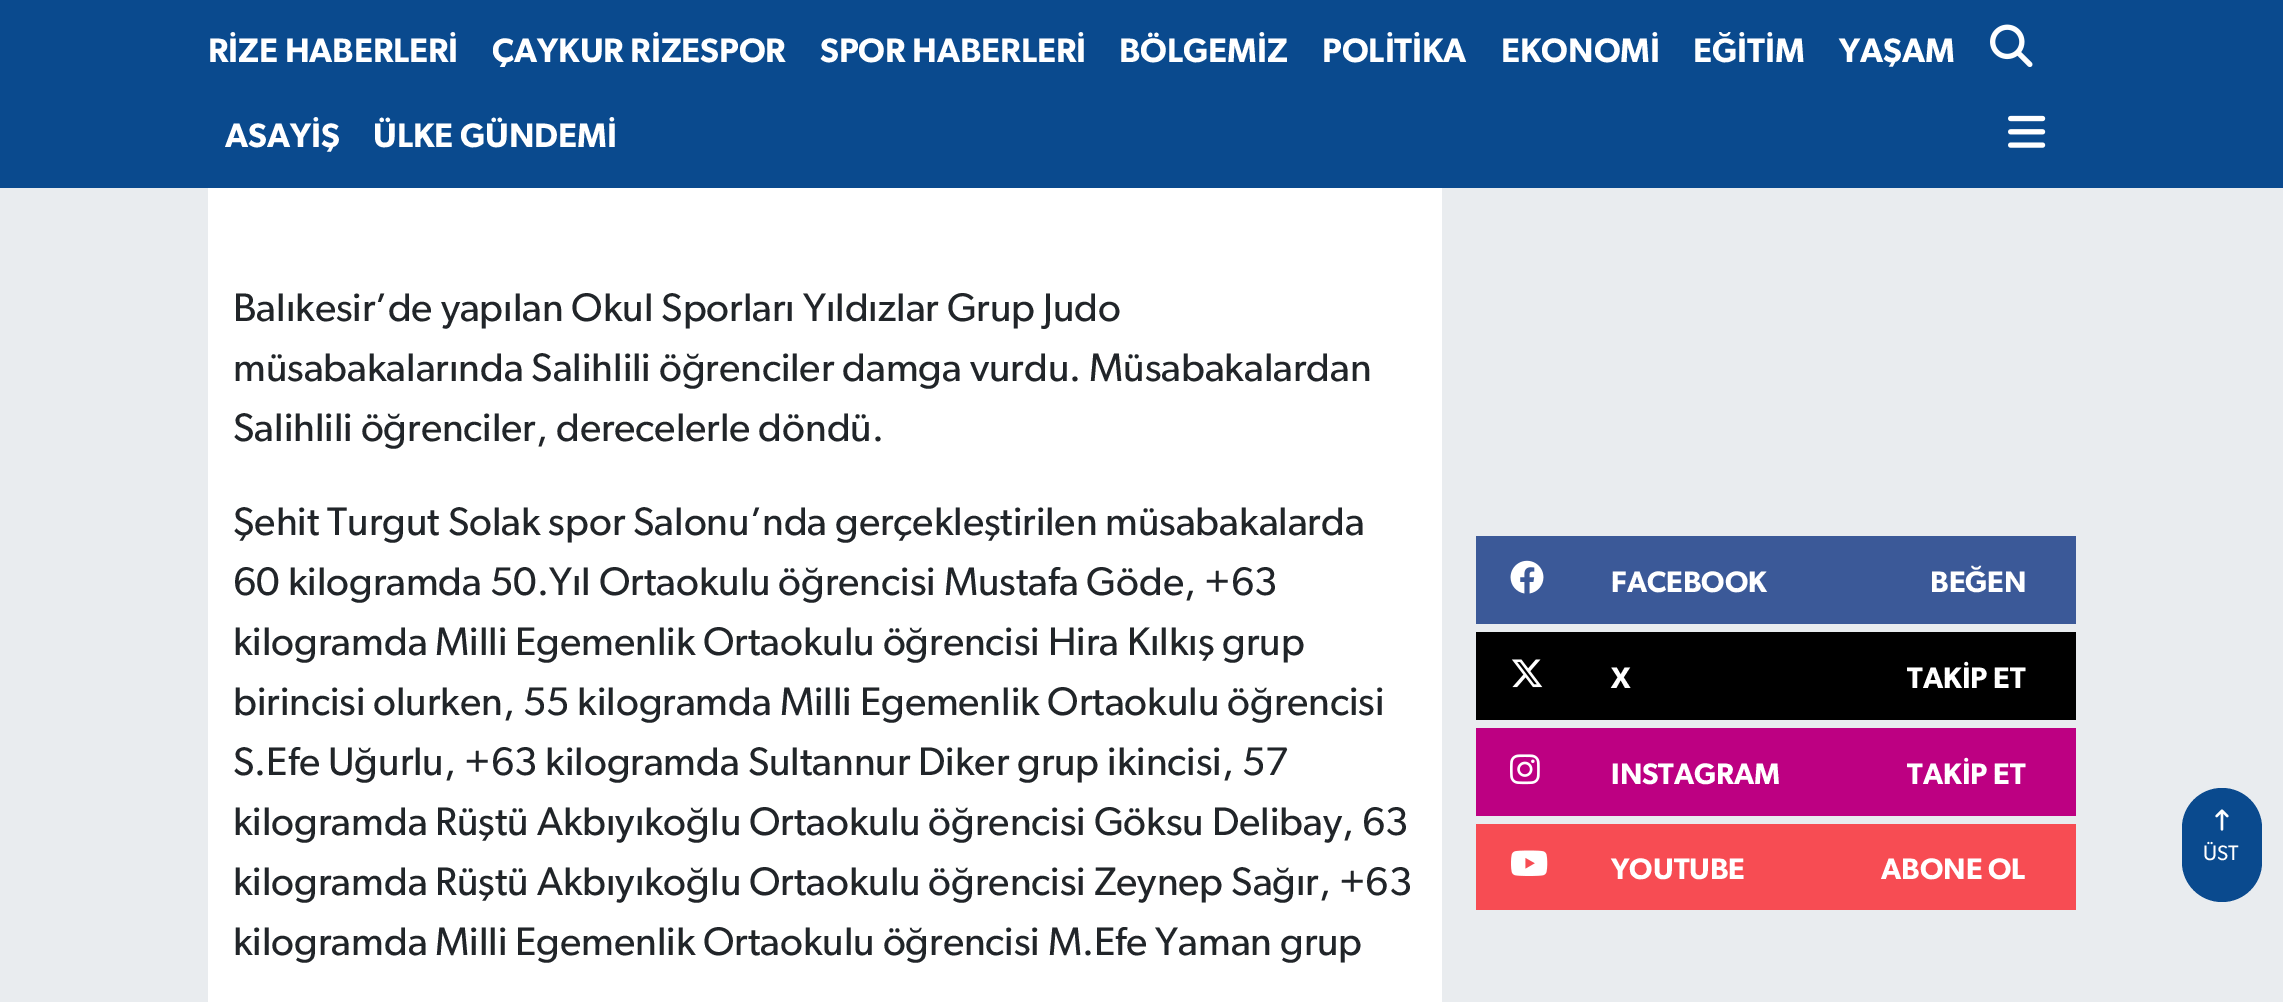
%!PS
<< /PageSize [2283 1002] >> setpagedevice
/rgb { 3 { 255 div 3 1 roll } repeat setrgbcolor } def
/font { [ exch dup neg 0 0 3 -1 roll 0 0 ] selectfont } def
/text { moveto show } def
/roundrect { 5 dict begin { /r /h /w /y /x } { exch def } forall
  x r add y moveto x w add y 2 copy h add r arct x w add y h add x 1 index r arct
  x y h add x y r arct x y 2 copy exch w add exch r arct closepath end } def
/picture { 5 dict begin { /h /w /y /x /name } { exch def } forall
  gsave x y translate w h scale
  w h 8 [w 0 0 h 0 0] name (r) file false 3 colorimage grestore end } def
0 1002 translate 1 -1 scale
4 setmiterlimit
233 236 239 rgb
0 0 2283 1002 rectfill
10 74 142 rgb
0 0 2283 188 rectfill
(img_01.rgb) 1990 24 43 43 picture
(img_02.rgb) 2008 115 38 33 picture
255 255 255 rgb
208 188 1234 814 rectfill
59 89 152 rgb
1476 536 600 88 rectfill
(img_03.rgb) 1510 560 34 34 picture
0 0 0 rgb
1476 632 600 88 rectfill
(img_04.rgb) 1511 659 32 29 picture
189 0 130 rgb
1476 728 600 88 rectfill
(img_05.rgb) 1510 754 30 31 picture
247 76 83 rgb
1476 824 600 86 rectfill
(img_06.rgb) 1511 850 37 26 picture
10 74 142 rgb
2182 788 80 114 40 roundrect fill
(img_07.rgb) 2215 809 14 22 picture
/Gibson-SemiBold 34 font
255 255 255 rgb
(RİZE HABERLERİ) 208 62 text
(ÇAYKUR RİZESPOR) 492 62 text
(SPOR HABERLERİ) 820 62 text
(BÖLGEMİZ) 1119 62 text
(POLİTİKA) 1322 62 text
(EKONOMİ) 1501 62 text
(EĞİTİM) 1693 62 text
(YAŞAM) 1839 62 text
(ASAYİŞ) 225 147 text
(ÜLKE GÜNDEMİ) 373 147 text
/Gibson-Regular 40 font
33 37 41 rgb
(Balıkesir’de yapılan Okul Sporları Yıldızlar Grup Judo) 233 321 text
(müsabakalarında Salihlili öğrenciler damga vurdu. Müsabakalardan) 233 381 text
(Salihlili öğrenciler, derecelerle döndü.) 233 441 text
(Şehit Turgut Solak spor Salonu’nda gerçekleştirilen müsabakalarda) 233 535 text
(60 kilogramda 50.Yıl Ortaokulu öğrencisi Mustafa Göde, +63) 233 595 text
(kilogramda Milli Egemenlik Ortaokulu öğrencisi Hira Kılkış grup) 233 655 text
(birincisi olurken, 55 kilogramda Milli Egemenlik Ortaokulu öğrencisi) 233 715 text
(S.Efe Uğurlu, +63 kilogramda Sultannur Diker grup ikincisi, 57) 233 775 text
(kilogramda Rüştü Akbıyıkoğlu Ortaokulu öğrencisi Göksu Delibay, 63) 233 835 text
(kilogramda Rüştü Akbıyıkoğlu Ortaokulu öğrencisi Zeynep Sağır, +63) 233 895 text
(kilogramda Milli Egemenlik Ortaokulu öğrencisi M.Efe Yaman grup) 233 955 text
/Gibson-SemiBold 29.75 font
255 255 255 rgb
(FACEBOOK) 1611 592 text
(BEĞEN) 1930 592 text
(X) 1611 688 text
(TAKİP ET) 1907 688 text
(INSTAGRAM) 1611 784 text
(TAKİP ET) 1907 784 text
(YOUTUBE) 1611 879 text
(ABONE OL) 1881 879 text
/Gibson-Regular 21 font
(ÜST) 2203 860 text
showpage
